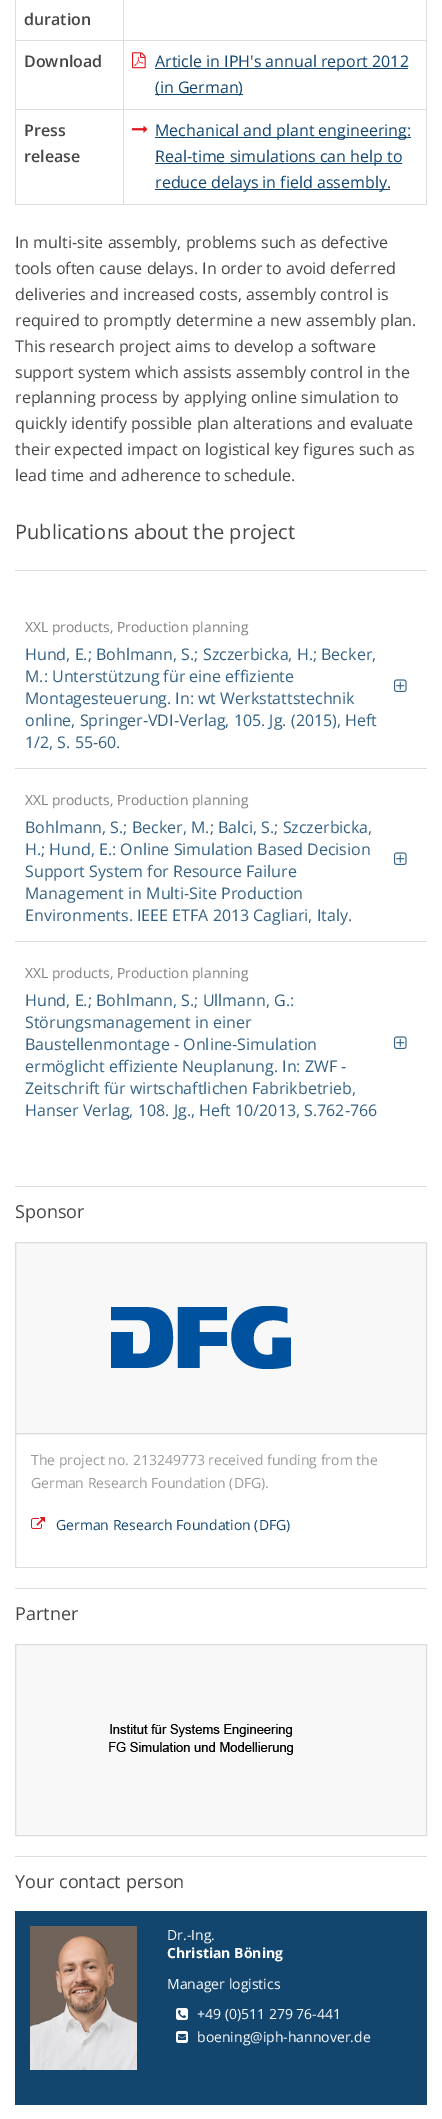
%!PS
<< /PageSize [442 2119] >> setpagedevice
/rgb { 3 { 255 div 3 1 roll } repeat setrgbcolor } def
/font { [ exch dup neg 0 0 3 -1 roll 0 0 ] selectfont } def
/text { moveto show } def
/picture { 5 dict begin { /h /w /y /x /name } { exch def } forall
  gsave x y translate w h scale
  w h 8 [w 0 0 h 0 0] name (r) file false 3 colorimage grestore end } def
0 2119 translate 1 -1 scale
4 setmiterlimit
255 255 255 rgb
0 0 442 2119 rectfill
221 221 221 rgb
426 0 1 205 rectfill
15 204 412 1 rectfill
15 0 1 205 rectfill
123 40 304 1 rectfill
123 109 304 1 rectfill
123 109 1 96 rectfill
15 109 109 1 rectfill
123 40 1 70 rectfill
15 40 109 1 rectfill
123 0 1 41 rectfill
(img_01.rgb) 132 52 14 17 picture
18 70 111 rgb
155 68 253 1 rectfill
155 94 88 1 rectfill
(img_02.rgb) 132 125 16 8 picture
155 137 256 1 rectfill
155 163 247 1 rectfill
155 189 235 1 rectfill
221 221 221 rgb
15 570 412 1 rectfill
15 768 412 1 rectfill
(img_03.rgb) 394 679 13 13 picture
15 941 412 1 rectfill
(img_03.rgb) 394 852 13 13 picture
(img_03.rgb) 394 1036 13 13 picture
15 1186 412 1 rectfill
248 248 248 rgb
15.5 1242.5 moveto 411 0 rlineto 0 191 rlineto -411 0 rlineto closepath gsave fill grestore
221 221 221 rgb
stroke
(img_04.rgb) 111 1306 180 63 picture
gsave
15 1434 412 134 rectclip
15.5 1433.5 411 134 rectstroke
grestore
(img_05.rgb) 31 1517 14 12 picture
15 1588 412 1 rectfill
248 248 248 rgb
15.5 1644.5 moveto 411 0 rlineto 0 191 rlineto -411 0 rlineto closepath gsave fill grestore
221 221 221 rgb
stroke
(img_06.rgb) 109 1724 184 31 picture
15 1856 412 1 rectfill
18 70 111 rgb
15 1911 412 194 rectfill
(img_07.rgb) 30 1926 107 144 picture
(img_08.rgb) 176 2008 12 12 picture
(img_09.rgb) 176 2031 12 12 picture
/OpenSans-SemiBold 16 font
70 70 70 rgb
(duration) 24 25 text
(Download) 24 67 text
/OpenSans-Regular 16 font
18 70 111 rgb
(Article in IPH's annual report 2012) 155 67 text
(\(in German\)) 155 93 text
/OpenSans-SemiBold 16 font
70 70 70 rgb
(Press) 24 136 text
(release) 24 162 text
/OpenSans-Regular 16 font
18 70 111 rgb
(Mechanical and plant engineering:) 155 136 text
(Real-time simulations can help to) 155 162 text
(reduce delays in field assembly.) 155 188 text
70 70 70 rgb
(In multi-site assembly, problems such as defective) 15 248 text
(tools often cause delays. In order to avoid deferred) 15 274 text
(deliveries and increased costs, assembly control is) 15 300 text
(required to promptly determine a new assembly plan.) 15 326 text
(This research project aims to develop a software) 15 352 text
(support system which assists assembly control in the) 15 378 text
(replanning process by applying online simulation to) 15 403 text
(quickly identify possible plan alterations and evaluate) 15 429 text
(their expected impact on logistical key figures such as) 15 455 text
(lead time and adherence to schedule.) 15 481 text
/OpenSans-Regular 20 font
(Publications about the project) 15 539 text
/OpenSans-Regular 13.9 font
128 128 128 rgb
(XXL products, Production planning) 25 632 text
/OpenSans-Regular 16 font
53 98 132 rgb
(Hund, E.; Bohlmann, S.; Szczerbicka, H.; Becker,) 25 660 text
(M.: Unterstützung für eine effiziente) 25 682 text
(Montagesteuerung. In: wt Werkstattstechnik) 25 704 text
(online, Springer-VDI-Verlag, 105. Jg. \(2015\), Heft) 25 726 text
(1/2, S. 55-60.) 25 748 text
/OpenSans-Regular 13.9 font
128 128 128 rgb
(XXL products, Production planning) 25 805 text
/OpenSans-Regular 16 font
53 98 132 rgb
(Bohlmann, S.; Becker, M.; Balci, S.; Szczerbicka,) 25 833 text
(H.; Hund, E.: Online Simulation Based Decision) 25 855 text
(Support System for Resource Failure) 25 877 text
(Management in Multi-Site Production) 25 899 text
(Environments. IEEE ETFA 2013 Cagliari, Italy.) 25 921 text
/OpenSans-Regular 13.9 font
128 128 128 rgb
(XXL products, Production planning) 25 978 text
/OpenSans-Regular 16 font
53 98 132 rgb
(Hund, E.; Bohlmann, S.; Ullmann, G.:) 25 1006 text
(Störungsmanagement in einer) 25 1028 text
(Baustellenmontage - Online-Simulation) 25 1050 text
(ermöglicht effiziente Neuplanung. In: ZWF -) 25 1072 text
(Zeitschrift für wirtschaftlichen Fabrikbetrieb,) 25 1094 text
(Hanser Verlag, 108. Jg., Heft 10/2013, S.762-766) 25 1116 text
/OpenSans-Regular 18 font
70 70 70 rgb
(Sponsor) 15 1218 text
/OpenSans-Regular 14 font
153 153 153 rgb
(The project no. 213249773 received funding from the) 31 1465 text
(German Research Foundation \(DFG\).) 31 1488 text
18 70 111 rgb
(German Research Foundation \(DFG\)) 56 1530 text
/OpenSans-Regular 18 font
70 70 70 rgb
(Partner) 15 1620 text
(Your contact person) 15 1888 text
/OpenSans-Regular 14 font
255 255 255 rgb
(Dr.-Ing.) 167 1940 text
/OpenSans-Bold 14 font
(Christian Böning) 167 1958 text
/OpenSans-Regular 14 font
(Manager logistics) 167 1989 text
(+49 \(0\)511 279 76-441) 197 2019 text
(boening@iph-hannover.de) 197 2042 text
showpage
